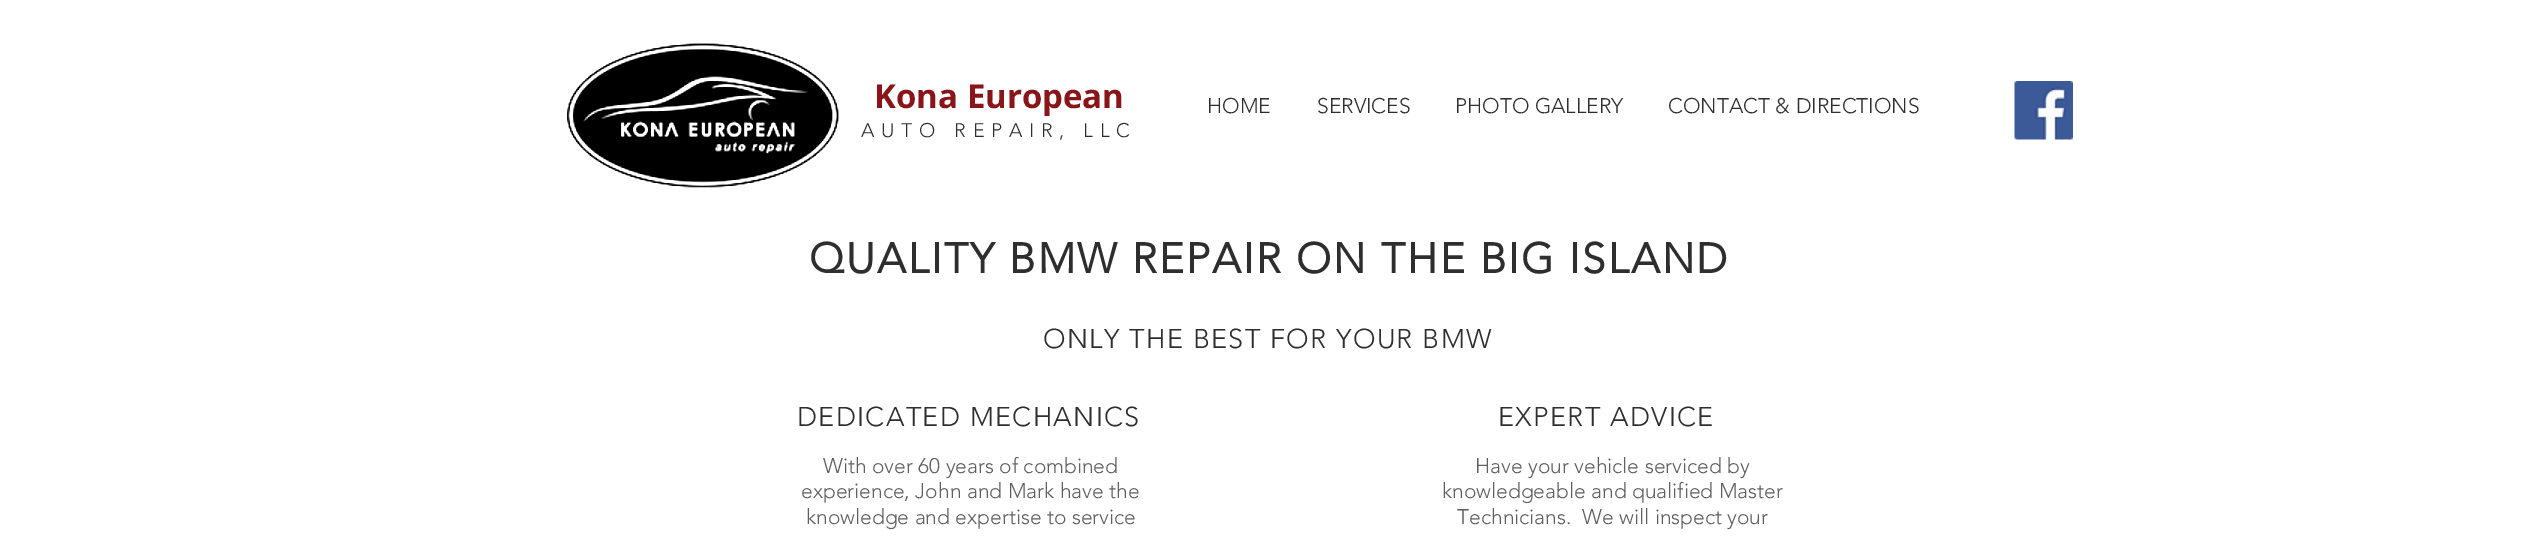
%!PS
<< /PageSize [2535 542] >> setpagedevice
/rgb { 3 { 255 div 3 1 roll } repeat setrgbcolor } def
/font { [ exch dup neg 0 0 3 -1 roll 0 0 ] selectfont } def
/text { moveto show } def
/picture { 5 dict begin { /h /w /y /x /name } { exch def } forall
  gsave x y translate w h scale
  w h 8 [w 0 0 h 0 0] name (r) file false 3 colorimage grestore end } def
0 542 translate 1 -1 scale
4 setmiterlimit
255 255 255 rgb
0 0 2535 542 rectfill
(img_01.rgb) 567 43 272 145 picture
(img_02.rgb) 2014 81 59 59 picture
/OpenSans-Bold 33 font
137 21 25 rgb
(Kona European) 874 108 text
/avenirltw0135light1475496-Light 19.5 font
47 46 46 rgb
861 137 moveto 6.8 0 (AUTO REPAIR, LLC) ashow
/avenirltw0135light1475496-Light 21 font
(HOME) 1207 113 text
(SERVICES) 1317 113 text
(PHOTO GALLERY) 1455 113 text
(CONTACT & DIRECTIONS) 1668 113 text
/avenirltw0135light1475496-Bold 42 font
809 273 moveto 2.1 0 (QUALITY BMW REPAIR ON THE BIG ISLAND) ashow
/avenirltw0135light1475496-Light 27 font
1043 348 moveto 1.35 0 (ONLY THE BEST FOR YOUR BMW) ashow
797 426 moveto 1.35 0 (DEDICATED MECHANICS) ashow
1498 426 moveto 1.35 0 (EXPERT ADVICE) ashow
/avenirltw0135light1475496-Light 21 font
96 94 94 rgb
(With over 60 years of combined) 823 473 text
(experience, John and Mark have the) 801 498 text
(knowledge and expertise to service) 806 524 text
(Have your vehicle serviced by) 1475 473 text
(knowledgeable and qualified Master) 1442 498 text
(Technicians.  We will inspect your) 1457 524 text
showpage
